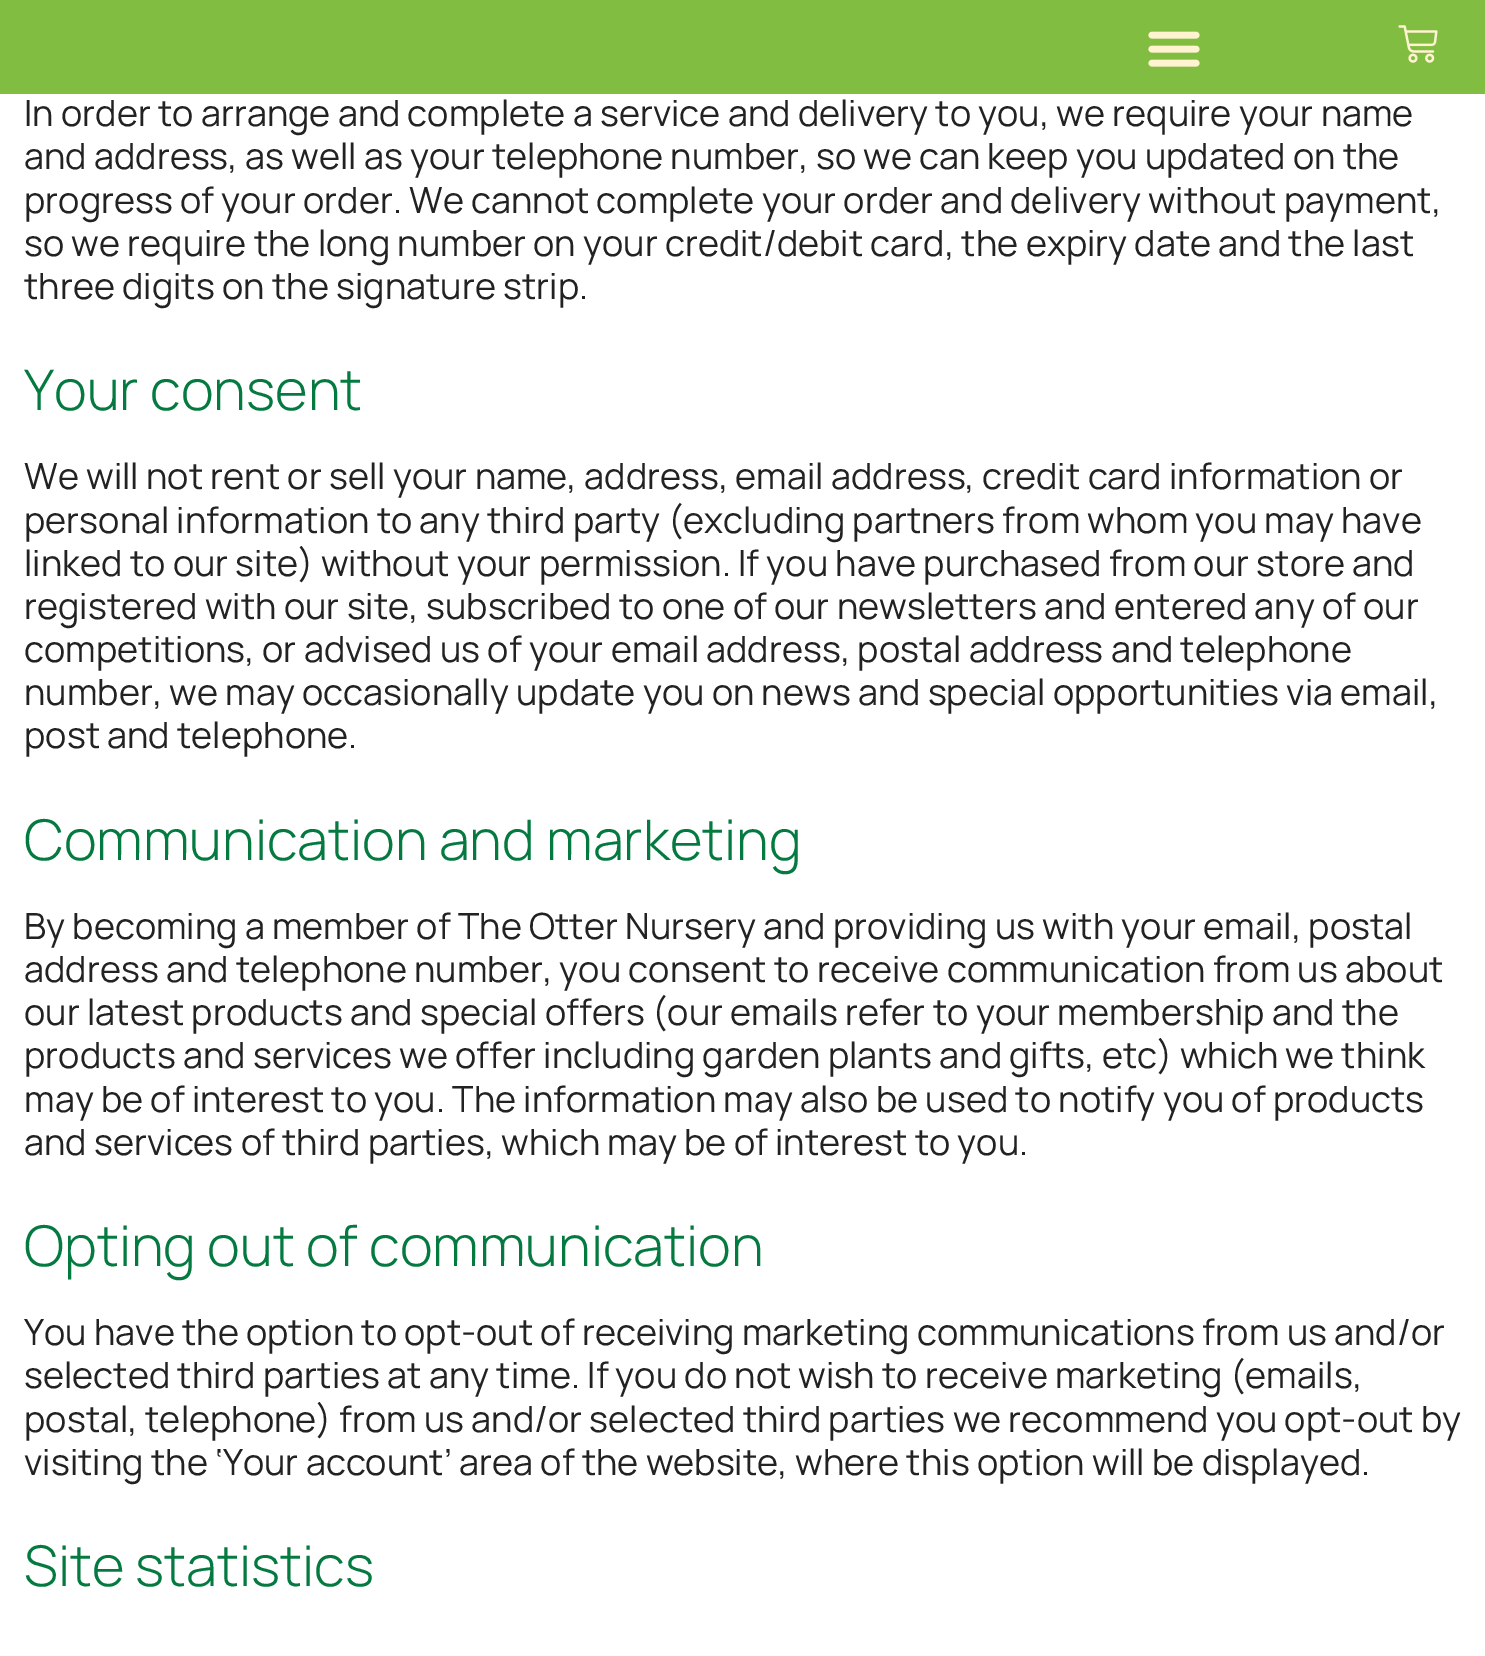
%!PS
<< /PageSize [1485 1656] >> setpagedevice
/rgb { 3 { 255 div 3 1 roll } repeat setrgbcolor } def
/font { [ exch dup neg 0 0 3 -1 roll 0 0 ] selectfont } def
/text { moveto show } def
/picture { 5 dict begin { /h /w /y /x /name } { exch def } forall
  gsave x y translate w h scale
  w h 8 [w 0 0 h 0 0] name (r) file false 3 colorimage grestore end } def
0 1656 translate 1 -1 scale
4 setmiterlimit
255 255 255 rgb
0 0 1485 1656 rectfill
129 189 65 rgb
0 0 1485 94 rectfill
(img_01.rgb) 1148 31 52 36 picture
(img_02.rgb) 1398 25 40 38 picture
/Manrope-Regular 36 font
34 34 34 rgb
(In order to arrange and complete a service and delivery to you, we require your name) 24 126 text
(and address, as well as your telephone number, so we can keep you updated on the) 24 169 text
(progress of your order. We cannot complete your order and delivery without payment,) 24 213 text
(so we require the long number on your credit/debit card, the expiry date and the last) 24 256 text
(three digits on the signature strip.) 24 299 text
/Manrope-Light 56 font
4 122 64 rgb
(Your consent) 24 410 text
/Manrope-Regular 36 font
34 34 34 rgb
(We will not rent or sell your name, address, email address, credit card information or) 24 489 text
(personal information to any third party \(excluding partners from whom you may have) 24 533 text
(linked to our site\) without your permission. If you have purchased from our store and) 24 576 text
(registered with our site, subscribed to one of our newsletters and entered any of our) 24 619 text
(competitions, or advised us of your email address, postal address and telephone) 24 662 text
(number, we may occasionally update you on news and special opportunities via email,) 24 705 text
(post and telephone.) 24 748 text
/Manrope-Light 56 font
4 122 64 rgb
(Communication and marketing) 24 860 text
/Manrope-Regular 36 font
34 34 34 rgb
(By becoming a member of The Otter Nursery and providing us with your email, postal) 24 939 text
(address and telephone number, you consent to receive communication from us about) 24 982 text
(our latest products and special offers \(our emails refer to your membership and the) 24 1025 text
(products and services we offer including garden plants and gifts, etc\) which we think) 24 1068 text
(may be of interest to you. The information may also be used to notify you of products) 24 1112 text
(and services of third parties, which may be of interest to you.) 24 1155 text
/Manrope-Light 56 font
4 122 64 rgb
(Opting out of communication) 24 1266 text
/Manrope-Regular 36 font
34 34 34 rgb
(You have the option to opt-out of receiving marketing communications from us and/or) 24 1345 text
(selected third parties at any time. If you do not wish to receive marketing \(emails,) 24 1388 text
(postal, telephone\) from us and/or selected third parties we recommend you opt-out by) 24 1432 text
(visiting the ‘Your account’ area of the website, where this option will be displayed.) 24 1475 text
/Manrope-Light 56 font
4 122 64 rgb
(Site statistics) 24 1586 text
showpage
